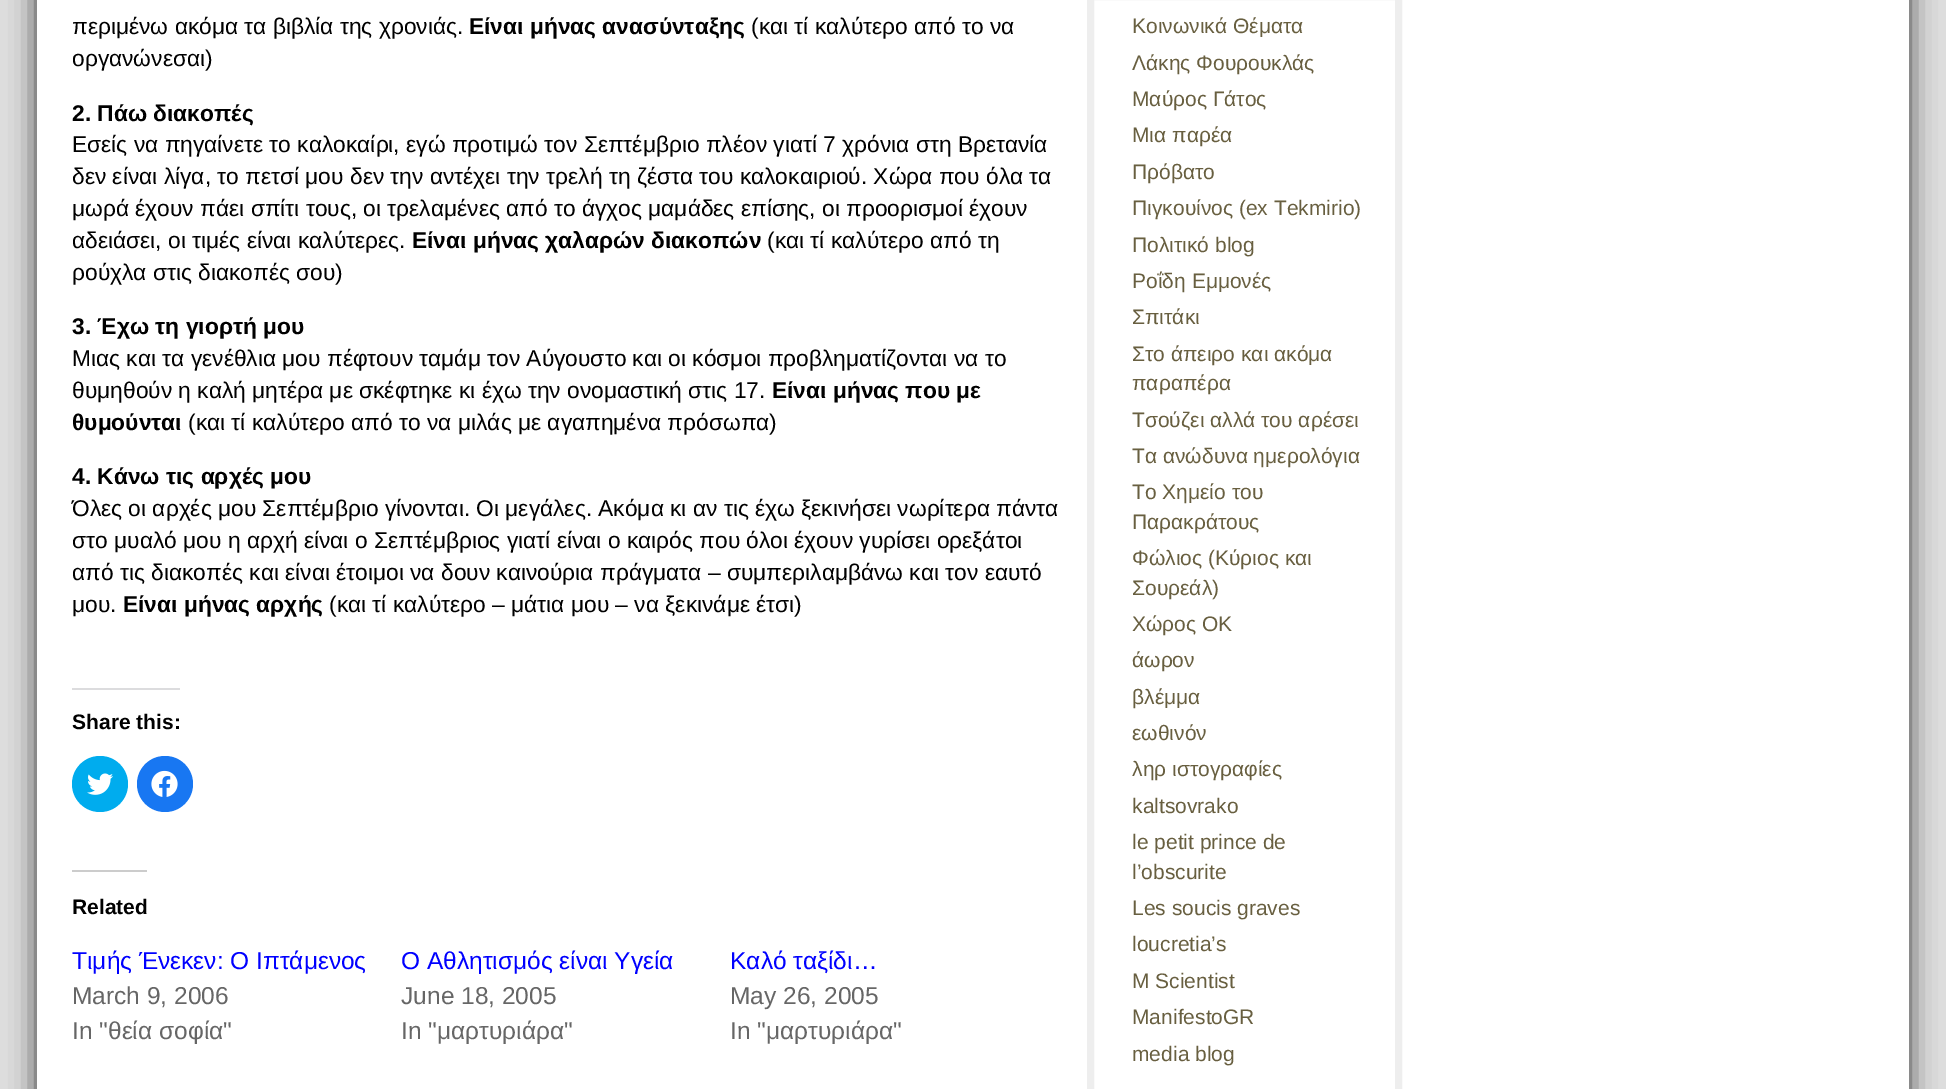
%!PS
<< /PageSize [1946 1089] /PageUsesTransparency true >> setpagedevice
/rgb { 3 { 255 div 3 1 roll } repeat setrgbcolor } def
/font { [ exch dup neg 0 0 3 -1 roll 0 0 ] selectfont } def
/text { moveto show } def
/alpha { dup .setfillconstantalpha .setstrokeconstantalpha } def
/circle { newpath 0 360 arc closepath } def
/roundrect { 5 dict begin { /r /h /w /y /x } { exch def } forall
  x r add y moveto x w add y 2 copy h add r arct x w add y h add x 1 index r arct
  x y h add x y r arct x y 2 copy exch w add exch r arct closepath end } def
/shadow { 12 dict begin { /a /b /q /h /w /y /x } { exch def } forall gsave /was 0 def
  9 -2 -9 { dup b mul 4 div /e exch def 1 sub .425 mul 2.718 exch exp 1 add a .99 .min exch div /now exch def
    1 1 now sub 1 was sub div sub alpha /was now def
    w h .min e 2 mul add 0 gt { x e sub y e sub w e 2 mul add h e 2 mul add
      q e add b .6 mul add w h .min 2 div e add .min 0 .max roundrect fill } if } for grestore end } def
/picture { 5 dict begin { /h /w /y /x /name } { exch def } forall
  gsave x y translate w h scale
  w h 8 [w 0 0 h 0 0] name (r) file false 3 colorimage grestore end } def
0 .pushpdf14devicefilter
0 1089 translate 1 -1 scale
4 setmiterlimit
221 221 221 rgb
0 0 1946 1089 rectfill
51 51 51 rgb
37 -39 1872 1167 0 13 1 shadow
255 255 255 rgb
37 0 1872 1089 rectfill
220 220 222 rgb
72 688 108 2 rectfill
0 172 238 rgb
100 784 28 circle fill
(img_01.rgb) 87 773 26 22 picture
24 119 242 rgb
165 784 28 circle fill
(img_02.rgb) 151 770 27 27 picture
204 204 204 rgb
72 870 75 2 rectfill
238 238 238 rgb
7 setlinewidth
1090.5 -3.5 308 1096 rectstroke
/LiberationSans-Regular 22.75 font
0 0 0 rgb
(περιμένω ακόμα τα βιβλία της χρονιάς.) 72 34 text
/LiberationSans-Bold 22.75 font
(Είναι μήνας ανασύνταξης) 469 34 text
/LiberationSans-Regular 22.75 font
(\(και τί καλύτερο από το να) 751 34 text
(οργανώνεσαι\)) 72 66 text
/LiberationSans-Bold 22.75 font
(2. Πάω διακοπές) 72 121 text
/LiberationSans-Regular 22.75 font
(Εσείς να πηγαίνετε το καλοκαίρι, εγώ προτιμώ τον Σεπτέμβριο πλέον γιατί 7 χρόνια στη Βρετανία) 72 152 text
(δεν είναι λίγα, το πετσί μου δεν την αντέχει την τρελή τη ζέστα του καλοκαιριού. Χώρα που όλα τα) 72 184 text
(μωρά έχουν πάει σπίτι τους, οι τρελαμένες από το άγχος μαμάδες επίσης, οι προορισμοί έχουν) 72 216 text
(αδειάσει, οι τιμές είναι καλύτερες.) 72 248 text
/LiberationSans-Bold 22.75 font
(Είναι μήνας χαλαρών διακοπών) 412 248 text
/LiberationSans-Regular 22.75 font
(\(και τί καλύτερο από τη) 767 248 text
(ρούχλα στις διακοπές σου\)) 72 280 text
/LiberationSans-Bold 22.75 font
(3. Έχω τη γιορτή μου) 72 334 text
/LiberationSans-Regular 22.75 font
(Μιας και τα γενέθλια μου πέφτουν ταμάμ τον Αύγουστο και οι κόσμοι προβληματίζονται να το) 72 366 text
(θυμηθούν η καλή μητέρα με σκέφτηκε κι έχω την ονομαστική στις 17.) 72 398 text
/LiberationSans-Bold 22.75 font
(Είναι μήνας που με) 772 398 text
(θυμούνται) 72 430 text
/LiberationSans-Regular 22.75 font
(\(και τί καλύτερο από το να μιλάς με αγαπημένα πρόσωπα\)) 188 430 text
/LiberationSans-Bold 22.75 font
(4. Κάνω τις αρχές μου) 72 484 text
/LiberationSans-Regular 22.75 font
(Όλες οι αρχές μου Σεπτέμβριο γίνονται. Οι μεγάλες. Ακόμα κι αν τις έχω ξεκινήσει νωρίτερα πάντα) 72 516 text
(στο μυαλό μου η αρχή είναι ο Σεπτέμβριος γιατί είναι ο καιρός που όλοι έχουν γυρίσει ορεξάτοι) 72 548 text
(από τις διακοπές και είναι έτοιμοι να δουν καινούρια πράγματα – συμπεριλαμβάνω και τον εαυτό) 72 580 text
(μου.) 72 612 text
/LiberationSans-Bold 22.75 font
(Είναι μήνας αρχής) 123 612 text
/LiberationSans-Regular 22.75 font
(\(και τί καλύτερο – μάτια μου – να ξεκινάμε έτσι\)) 329 612 text
/LiberationSans-Bold 21 font
(Share this:) 72 729 text
(Related) 72 914 text
/LiberationSans-Regular 24.5 font
0 0 255 rgb
(Τιμής Ένεκεν: Ο Ιπτάμενος) 72 969 text
102 102 102 rgb
(March 9, 2006) 72 1004 text
(In "θεία σοφία") 72 1039 text
0 0 255 rgb
(Ο Αθλητισμός είναι Υγεία) 401 969 text
102 102 102 rgb
(June 18, 2005) 401 1004 text
(In "μαρτυριάρα") 401 1039 text
0 0 255 rgb
(Καλό ταξίδι…) 730 969 text
102 102 102 rgb
(May 26, 2005) 730 1004 text
(In "μαρτυριάρα") 730 1039 text
/LiberationSans-Regular 21 font
104 95 64 rgb
(Κοινωνικά Θέματα) 1132 33 text
(Λάκης Φουρουκλάς) 1132 70 text
(Μαύρος Γάτος) 1132 106 text
(Μια παρέα) 1132 142 text
(Πρόβατο) 1132 179 text
(Πιγκουίνος \(ex Tekmirio\)) 1132 215 text
(Πολιτικό blog) 1132 252 text
(Ροΐδη Εμμονές) 1132 288 text
(Σπιτάκι) 1132 324 text
(Στο άπειρο και ακόμα) 1132 361 text
(παραπέρα) 1132 390 text
(Τσούζει αλλά του αρέσει) 1132 427 text
(Τα ανώδυνα ημερολόγια) 1132 463 text
(Το Χημείο του) 1132 499 text
(Παρακράτους) 1132 529 text
(Φώλιος \(Κύριος και) 1132 565 text
(Σουρεάλ\)) 1132 595 text
(Χώρος ΟΚ) 1132 631 text
(άωρον) 1132 667 text
(βλέμμα) 1132 704 text
(εωθινόν) 1132 740 text
(ληρ ιστογραφίες) 1132 776 text
(kaltsovrako) 1132 813 text
(le petit prince de) 1132 849 text
(l’obscurite) 1132 879 text
(Les soucis graves) 1132 915 text
(loucretia’s) 1132 951 text
(M Scientist) 1132 988 text
(ManifestoGR) 1132 1024 text
(media blog) 1132 1061 text
.poppdf14devicefilter showpage
